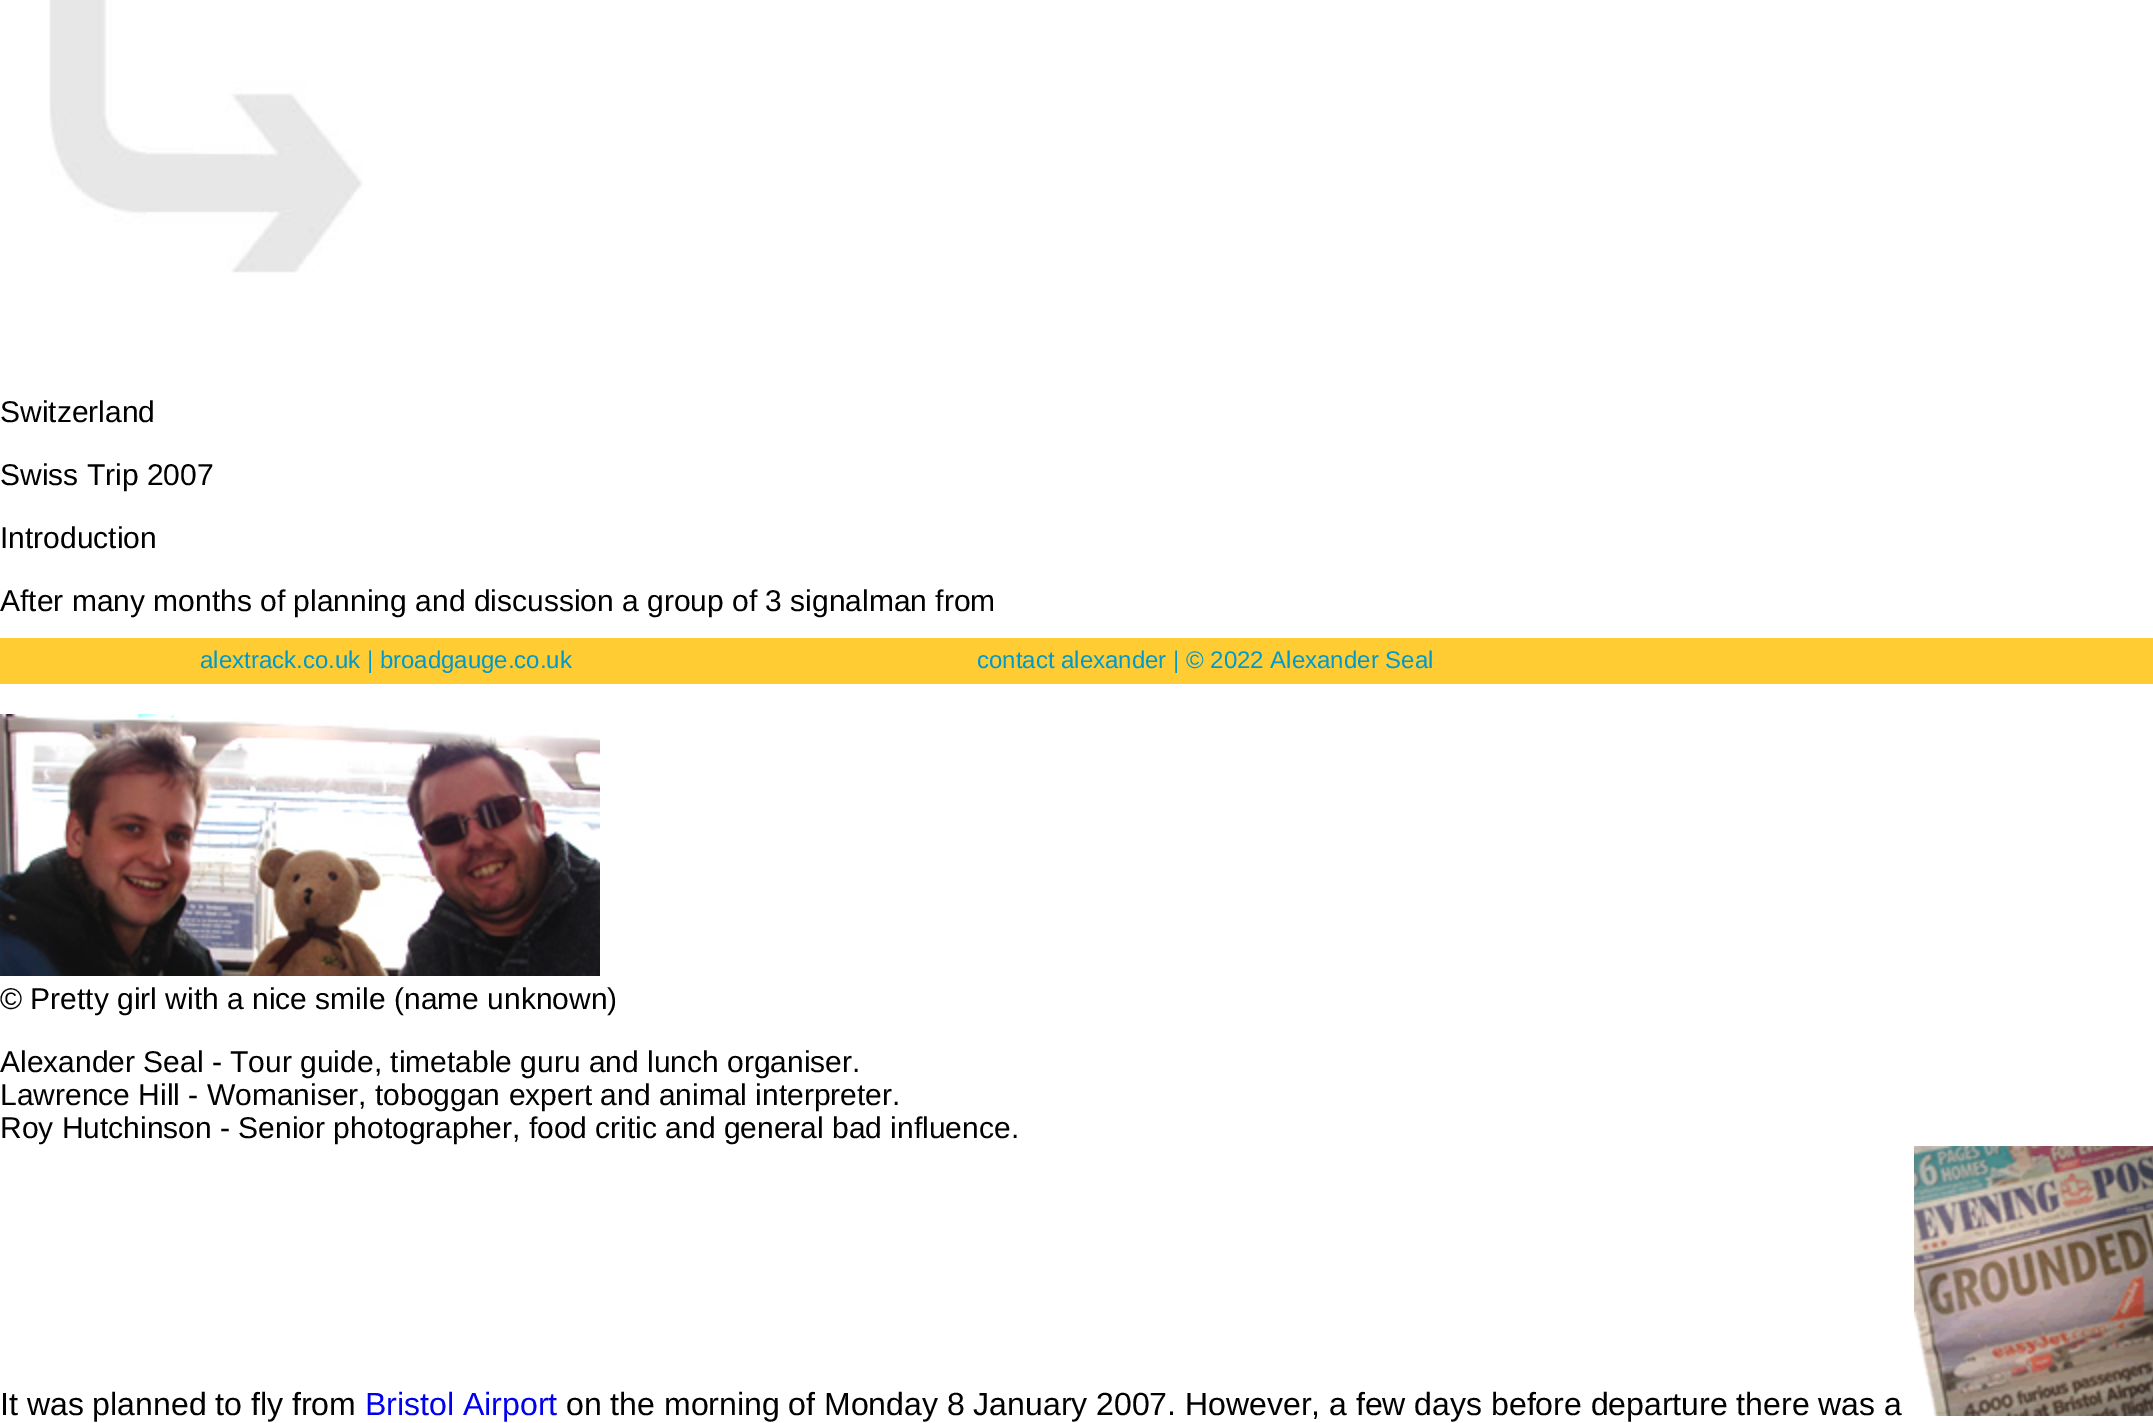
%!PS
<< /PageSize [2153 1423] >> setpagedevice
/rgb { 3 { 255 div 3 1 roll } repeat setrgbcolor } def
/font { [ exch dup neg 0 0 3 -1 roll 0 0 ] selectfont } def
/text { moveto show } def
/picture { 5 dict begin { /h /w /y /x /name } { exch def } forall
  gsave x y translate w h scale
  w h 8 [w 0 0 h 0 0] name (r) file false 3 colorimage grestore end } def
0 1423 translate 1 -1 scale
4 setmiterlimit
255 255 255 rgb
0 0 2153 1423 rectfill
(img_01.rgb) 49 0 314 273 picture
255 204 51 rgb
0 638 2153 46 rectfill
(img_02.rgb) 0 714 600 262 picture
(img_03.rgb) 1914 1146 239 270 picture
/LiberationSans-Regular 30 font
0 0 0 rgb
(Switzerland) 0 422 text
(Swiss Trip 2007) 0 485 text
(Introduction) 0 548 text
(After many months of planning and discussion a group of 3 signalman from) 0 611 text
/LiberationSans-Regular 24 font
0 153 204 rgb
(alextrack.co.uk | broadgauge.co.uk) 200 668 text
(contact alexander | © 2022 Alexander Seal) 977 668 text
/LiberationSans-Regular 30 font
0 0 0 rgb
(© Pretty girl with a nice smile \(name unknown\)) 0 1009 text
(Alexander Seal - Tour guide, timetable guru and lunch organiser.) 0 1072 text
(Lawrence Hill - Womaniser, toboggan expert and animal interpreter.) 0 1105 text
(Roy Hutchinson - Senior photographer, food critic and general bad influence.) 0 1138 text
/LiberationSans-Regular 32 font
(It was planned to fly from) 0 1415 text
0 0 238 rgb
(Bristol Airport) 365 1415 text
0 0 0 rgb
(on the morning of Monday 8 January 2007. However, a few days before departure there was a) 566 1415 text
showpage
